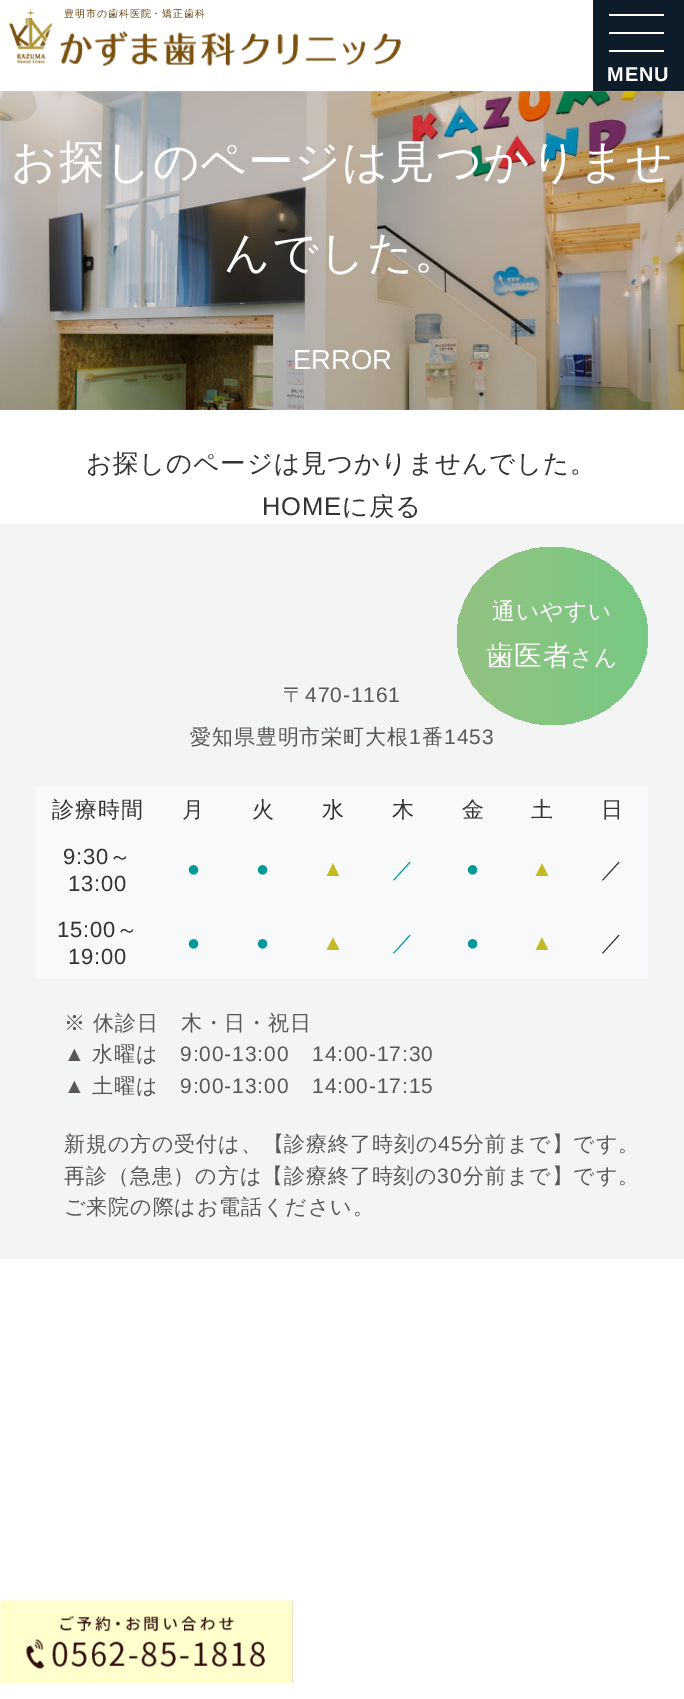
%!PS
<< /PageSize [684 1699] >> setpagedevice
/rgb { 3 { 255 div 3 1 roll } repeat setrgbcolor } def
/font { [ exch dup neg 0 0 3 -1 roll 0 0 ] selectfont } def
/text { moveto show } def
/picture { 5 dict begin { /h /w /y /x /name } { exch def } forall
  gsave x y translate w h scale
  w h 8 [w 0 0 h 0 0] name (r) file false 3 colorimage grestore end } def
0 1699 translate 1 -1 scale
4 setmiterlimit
255 255 255 rgb
0 0 684 1699 rectfill
(img_01.rgb) 9 9 392 57 picture
14 28 41 rgb
593 0 91 91 rectfill
255 255 255 rgb
609 14 55 2 rectfill
609 32 55 2 rectfill
609 50 55 2 rectfill
(img_02.rgb) 0 91 684 319 picture
243 245 245 rgb
0 524 684 735 rectfill
gsave 552.5 547 moveto 52.5 0 95.5 40 95.5 89 rcurveto 0 49 -43 89 -95.5 89 rcurveto -52.5 0 -95.5 -40 -95.5 -89 rcurveto 0 -49 43 -89 95.5 -89 rcurveto closepath clip newpath
<< /ShadingType 2 /ColorSpace /DeviceRGB /Coords [457 636 648 636] /Extend [true true] /Function << /FunctionType 2 /Domain [0 1] /C0 [0.576 0.761 0.506] /C1 [0.471 0.788 0.518] /N 1 >> >> shfill grestore
247 249 250 rgb
36 786 612 193 rectfill
(img_03.rgb) 0 1600 294 84 picture
/WenQuanYiZenHei-Medium 10 font
104 68 15 rgb
64 17 moveto 0.9 0 (豊明市の歯科医院・矯正歯科) ashow
/LiberationSans-Bold 20 font
255 255 255 rgb
607 81 moveto 0.9 0 (MENU) ashow
/WenQuanYiZenHei-Medium 45.6 font
11 177 moveto 0.9 0 (お探しのページは見つかりませ) ashow
224 268 moveto 0.9 0 (んでした。) ashow
/LiberationSans-Regular 27.5 font
(ERROR) 293 369 text
/WenQuanYiZenHei-Medium 25.5 font
51 51 51 rgb
86 472 moveto 0.9 0 (お探しのページは見つかりませんでした。) ashow
/LiberationSans-Regular 25.5 font
262 515 moveto 0.9 0 (HOME) ashow
/WenQuanYiZenHei-Medium 25.5 font
342 515 moveto 0.9 0 (に戻る) ashow
/WenQuanYiZenHei-Medium 22.75 font
255 255 255 rgb
492 619 moveto 0.9 0 (通いやすい) ashow
/WenQuanYiZenHei-Medium 27.5 font
486 665 moveto 0.9 0 (歯医者) ashow
/WenQuanYiZenHei-Medium 22.75 font
570 665 moveto 0.9 0 (さん) ashow
/WenQuanYiZenHei-Medium 21 font
89 88 87 rgb
283 702 moveto 0.9 0 (〒) ashow
/LiberationSans-Regular 21 font
305 702 moveto 0.9 0 (470-1161) ashow
/WenQuanYiZenHei-Medium 21 font
190 744 moveto 0.9 0 (愛知県豊明市栄町大根) ashow
/LiberationSans-Regular 21 font
409 744 moveto 0.9 0 (1) ashow
/WenQuanYiZenHei-Medium 21 font
422 744 moveto 0.9 0 (番) ashow
/LiberationSans-Regular 21 font
444 744 moveto 0.9 0 (1453) ashow
/WenQuanYiZenHei-Medium 22 font
51 51 51 rgb
52 817 moveto 0.9 0 (診療時間) ashow
182 817 moveto 0.9 0 (月) ashow
252 817 moveto 0.9 0 (火) ashow
322 817 moveto 0.9 0 (水) ashow
392 817 moveto 0.9 0 (木) ashow
462 817 moveto 0.9 0 (金) ashow
531 817 moveto 0.9 0 (土) ashow
601 817 moveto 0.9 0 (日) ashow
/LiberationSans-Regular 22 font
63 864 moveto 0.9 0 (9:30) ashow
/WenQuanYiZenHei-Medium 22 font
109 864 moveto 0.9 0 (～) ashow
/LiberationSans-Regular 22 font
68 891 moveto 0.9 0 (13:00) ashow
0 153 153 rgb
187 876 moveto 0.9 0 (●) ashow
256 876 moveto 0.9 0 (●) ashow
197 187 32 rgb
322 876 moveto 0.9 0 (▲) ashow
/WenQuanYiZenHei-Medium 22 font
0 153 153 rgb
392 877 moveto 0.9 0 (／) ashow
/LiberationSans-Regular 22 font
466 876 moveto 0.9 0 (●) ashow
197 187 32 rgb
531 876 moveto 0.9 0 (▲) ashow
/WenQuanYiZenHei-Medium 22 font
51 51 51 rgb
601 877 moveto 0.9 0 (／) ashow
/LiberationSans-Regular 22 font
57 937 moveto 0.9 0 (15:00) ashow
/WenQuanYiZenHei-Medium 22 font
116 937 moveto 0.9 0 (～) ashow
/LiberationSans-Regular 22 font
68 964 moveto 0.9 0 (19:00) ashow
0 153 153 rgb
187 950 moveto 0.9 0 (●) ashow
256 950 moveto 0.9 0 (●) ashow
197 187 32 rgb
322 950 moveto 0.9 0 (▲) ashow
/WenQuanYiZenHei-Medium 22 font
0 153 153 rgb
392 950 moveto 0.9 0 (／) ashow
/LiberationSans-Regular 22 font
466 950 moveto 0.9 0 (●) ashow
197 187 32 rgb
531 950 moveto 0.9 0 (▲) ashow
/WenQuanYiZenHei-Medium 22 font
51 51 51 rgb
601 950 moveto 0.9 0 (／) ashow
/WenQuanYiZenHei-Medium 21 font
89 88 87 rgb
64 1030 moveto 0.9 0 (※ 休診日　木・日・祝日) ashow
/LiberationSans-Regular 21 font
64 1061 moveto 0.9 0 (▲) ashow
/WenQuanYiZenHei-Medium 21 font
92 1061 moveto 0.9 0 (水曜は) ashow
/LiberationSans-Regular 21 font
180 1061 moveto 0.9 0 (9:00-13:00) ashow
312 1061 moveto 0.9 0 (14:00-17:30) ashow
64 1093 moveto 0.9 0 (▲) ashow
/WenQuanYiZenHei-Medium 21 font
92 1093 moveto 0.9 0 (土曜は) ashow
/LiberationSans-Regular 21 font
180 1093 moveto 0.9 0 (9:00-13:00) ashow
312 1093 moveto 0.9 0 (14:00-17:15) ashow
/WenQuanYiZenHei-Medium 21 font
64 1151 moveto 0.9 0 (新規の方の受付は、【診療終了時刻の) ashow
/LiberationSans-Regular 21 font
438 1151 moveto 0.9 0 (45) ashow
/WenQuanYiZenHei-Medium 21 font
463 1151 moveto 0.9 0 (分前まで】です。) ashow
64 1183 moveto 0.9 0 (再診（急患）の方は【診療終了時刻の) ashow
/LiberationSans-Regular 21 font
437 1183 moveto 0.9 0 (30) ashow
/WenQuanYiZenHei-Medium 21 font
463 1183 moveto 0.9 0 (分前まで】です。) ashow
64 1214 moveto 0.9 0 (ご来院の際はお電話ください。) ashow
showpage
